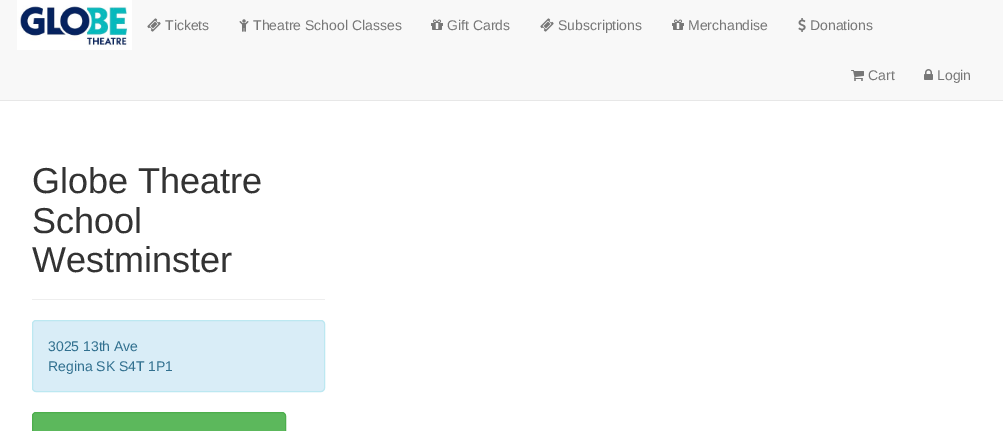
%!PS
<< /PageSize [1003 431] >> setpagedevice
/rgb { 3 { 255 div 3 1 roll } repeat setrgbcolor } def
/font { [ exch dup neg 0 0 3 -1 roll 0 0 ] selectfont } def
/text { moveto show } def
/roundrect { 5 dict begin { /r /h /w /y /x } { exch def } forall
  x r add y moveto x w add y 2 copy h add r arct x w add y h add x 1 index r arct
  x y h add x y r arct x y 2 copy exch w add exch r arct closepath end } def
/picture { 5 dict begin { /h /w /y /x /name } { exch def } forall
  gsave x y translate w h scale
  w h 8 [w 0 0 h 0 0] name (r) file false 3 colorimage grestore end } def
0 431 translate 1 -1 scale
4 setmiterlimit
255 255 255 rgb
0 0 1003 431 rectfill
248 248 248 rgb
0 0 1003 100 rectfill
231 231 231 rgb
0 100 1003 1 rectfill
(img_01.rgb) 17 0 115 50 picture
(img_02.rgb) 147 18 14 14 picture
(img_03.rgb) 239 19 10 13 picture
(img_04.rgb) 431 19 12 11 picture
(img_02.rgb) 540 18 14 14 picture
(img_04.rgb) 672 19 12 11 picture
(img_05.rgb) 798 18 8 14 picture
(img_06.rgb) 851 70 13 11 picture
(img_07.rgb) 924 69 9 11 picture
238 238 238 rgb
32 299 293 1 rectfill
217 237 247 rgb
32.5 320.5 292 71 3.5 roundrect gsave fill grestore
188 232 241 rgb
stroke
92 184 92 rgb
32.5 412.5 253 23 3.5 roundrect gsave fill grestore
76 174 76 rgb
stroke
/LiberationSans-Regular 14 font
119 119 119 rgb
(Tickets) 165 30 text
(Theatre School Classes) 253 30 text
(Gift Cards) 447 30 text
(Subscriptions) 558 30 text
(Merchandise) 688 30 text
(Donations) 810 30 text
(Cart) 868 80 text
(Login) 937 80 text
/LiberationSans-Regular 36 font
51 51 51 rgb
(Globe Theatre) 32 193 text
(School) 32 233 text
(Westminster) 32 272 text
/LiberationSans-Regular 14 font
49 112 143 rgb
(3025 13th Ave) 48 351 text
(Regina SK S4T 1P1) 48 371 text
showpage
